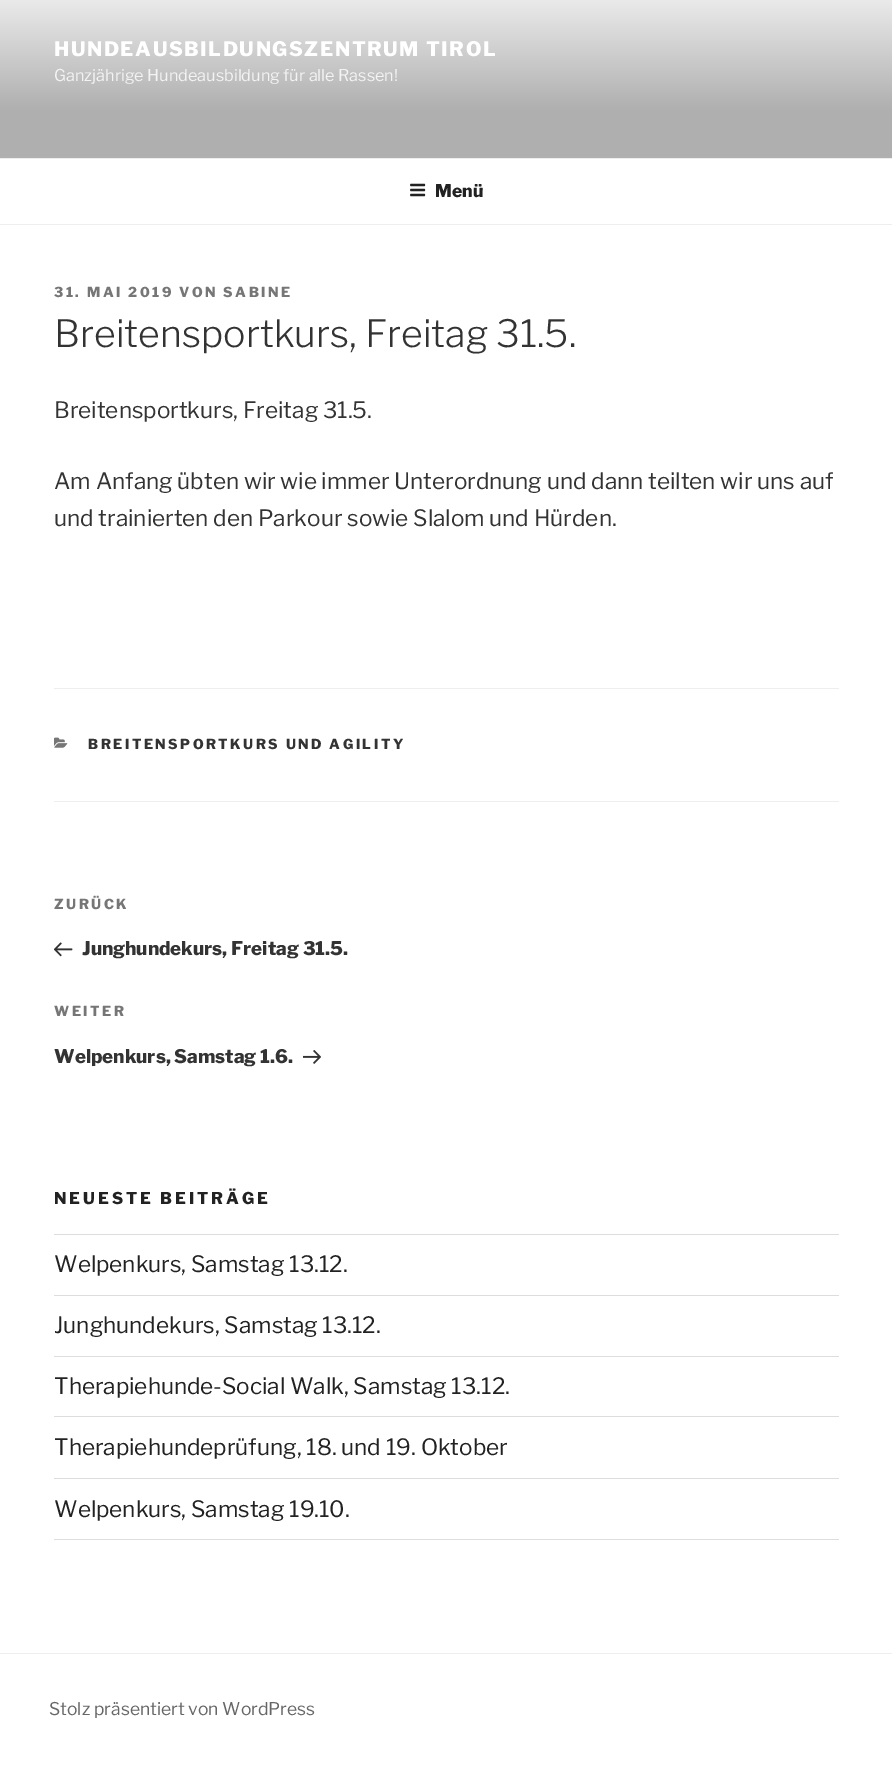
%!PS
<< /PageSize [892 1770] >> setpagedevice
/rgb { 3 { 255 div 3 1 roll } repeat setrgbcolor } def
/font { [ exch dup neg 0 0 3 -1 roll 0 0 ] selectfont } def
/text { moveto show } def
/picture { 5 dict begin { /h /w /y /x /name } { exch def } forall
  gsave x y translate w h scale
  w h 8 [w 0 0 h 0 0] name (r) file false 3 colorimage grestore end } def
0 1770 translate 1 -1 scale
4 setmiterlimit
255 255 255 rgb
0 0 892 1770 rectfill
gsave 0 0 moveto 892 0 rlineto 0 158 rlineto -892 0 rlineto closepath clip newpath
<< /ShadingType 2 /ColorSpace /DeviceRGB /Coords [446 -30 446 158] /Extend [true true] /Function << /FunctionType 3 /Domain [0 1] /Functions [<< /FunctionType 2 /Domain [0 1] /C0 [0.98 0.98 0.98] /C1 [0.686 0.686 0.686] /N 1 >> << /FunctionType 2 /Domain [0 1] /C0 [0.686 0.686 0.686] /C1 [0.686 0.686 0.686] /N 1 >>] /Bounds [0.75] /Encode [0 1 0 1] >> >> shfill grestore
238 238 238 rgb
0 158 892 1 rectfill
0 224 892 1 rectfill
(img_01.rgb) 410 183 16 14 picture
54 688 785 1 rectfill
54 801 785 1 rectfill
(img_02.rgb) 54 737 14 11 picture
(img_03.rgb) 54 942 19 15 picture
(img_04.rgb) 303 1050 18 14 picture
221 221 221 rgb
54 1234 785 1 rectfill
54 1295 785 1 rectfill
54 1356 785 1 rectfill
54 1416 785 1 rectfill
54 1478 785 1 rectfill
54 1539 785 1 rectfill
238 238 238 rgb
0 1653 892 1 rectfill
/LibreFranklin-ExtraBold 20 font
255 255 255 rgb
54 56 moveto 1.6 0 (HUNDEAUSBILDUNGSZENTRUM TIROL) ashow
/LibreFranklin-Regular 16.25 font
243 243 243 rgb
(Ganzjährige Hundeausbildung für alle Rassen!) 54 81 text
/LibreFranklin-ExtraBold 17.5 font
34 34 34 rgb
(Menü) 435 197 text
/LibreFranklin-ExtraBold 13.75 font
118 118 118 rgb
54 297 moveto 2.5 0 (31. MAI 2019 VON SABINE) ashow
/LibreFranklin-Light 37.5 font
51 51 51 rgb
(Breitensportkurs, Freitag 31.5.) 54 347 text
/LibreFranklin-Regular 22.5 font
(Breitensportkurs, Freitag 31.5.) 54 418 text
(Am Anfang übten wir wie immer Unterordnung und dann teilten wir uns auf) 54 489 text
(und trainierten den Parkour sowie Slalom und Hürden.) 54 526 text
/LibreFranklin-ExtraBold 13.75 font
88 749 moveto 2.5 0 (BREITENSPORTKURS UND AGILITY) ashow
118 118 118 rgb
54 909 moveto 2.5 0 (ZURÜCK) ashow
/LibreFranklin-ExtraBold 18.75 font
51 51 51 rgb
(Junghundekurs, Freitag 31.5.) 82 955 text
/LibreFranklin-ExtraBold 13.75 font
118 118 118 rgb
54 1016 moveto 2.5 0 (WEITER) ashow
/LibreFranklin-ExtraBold 18.75 font
51 51 51 rgb
(Welpenkurs, Samstag 1.6.) 54 1063 text
/LibreFranklin-ExtraBold 16.25 font
34 34 34 rgb
54 1204 moveto 3 0 (NEUESTE BEITRÄGE) ashow
/LibreFranklin-Regular 22.5 font
(Welpenkurs, Samstag 13.12.) 54 1272 text
(Junghundekurs, Samstag 13.12.) 54 1333 text
(Therapiehunde-Social Walk, Samstag 13.12.) 54 1394 text
(Therapiehundeprüfung, 18. und 19. Oktober) 54 1455 text
(Welpenkurs, Samstag 19.10.) 54 1517 text
/LibreFranklin-Regular 17.5 font
102 102 102 rgb
(Stolz präsentiert von WordPress) 49 1715 text
showpage
